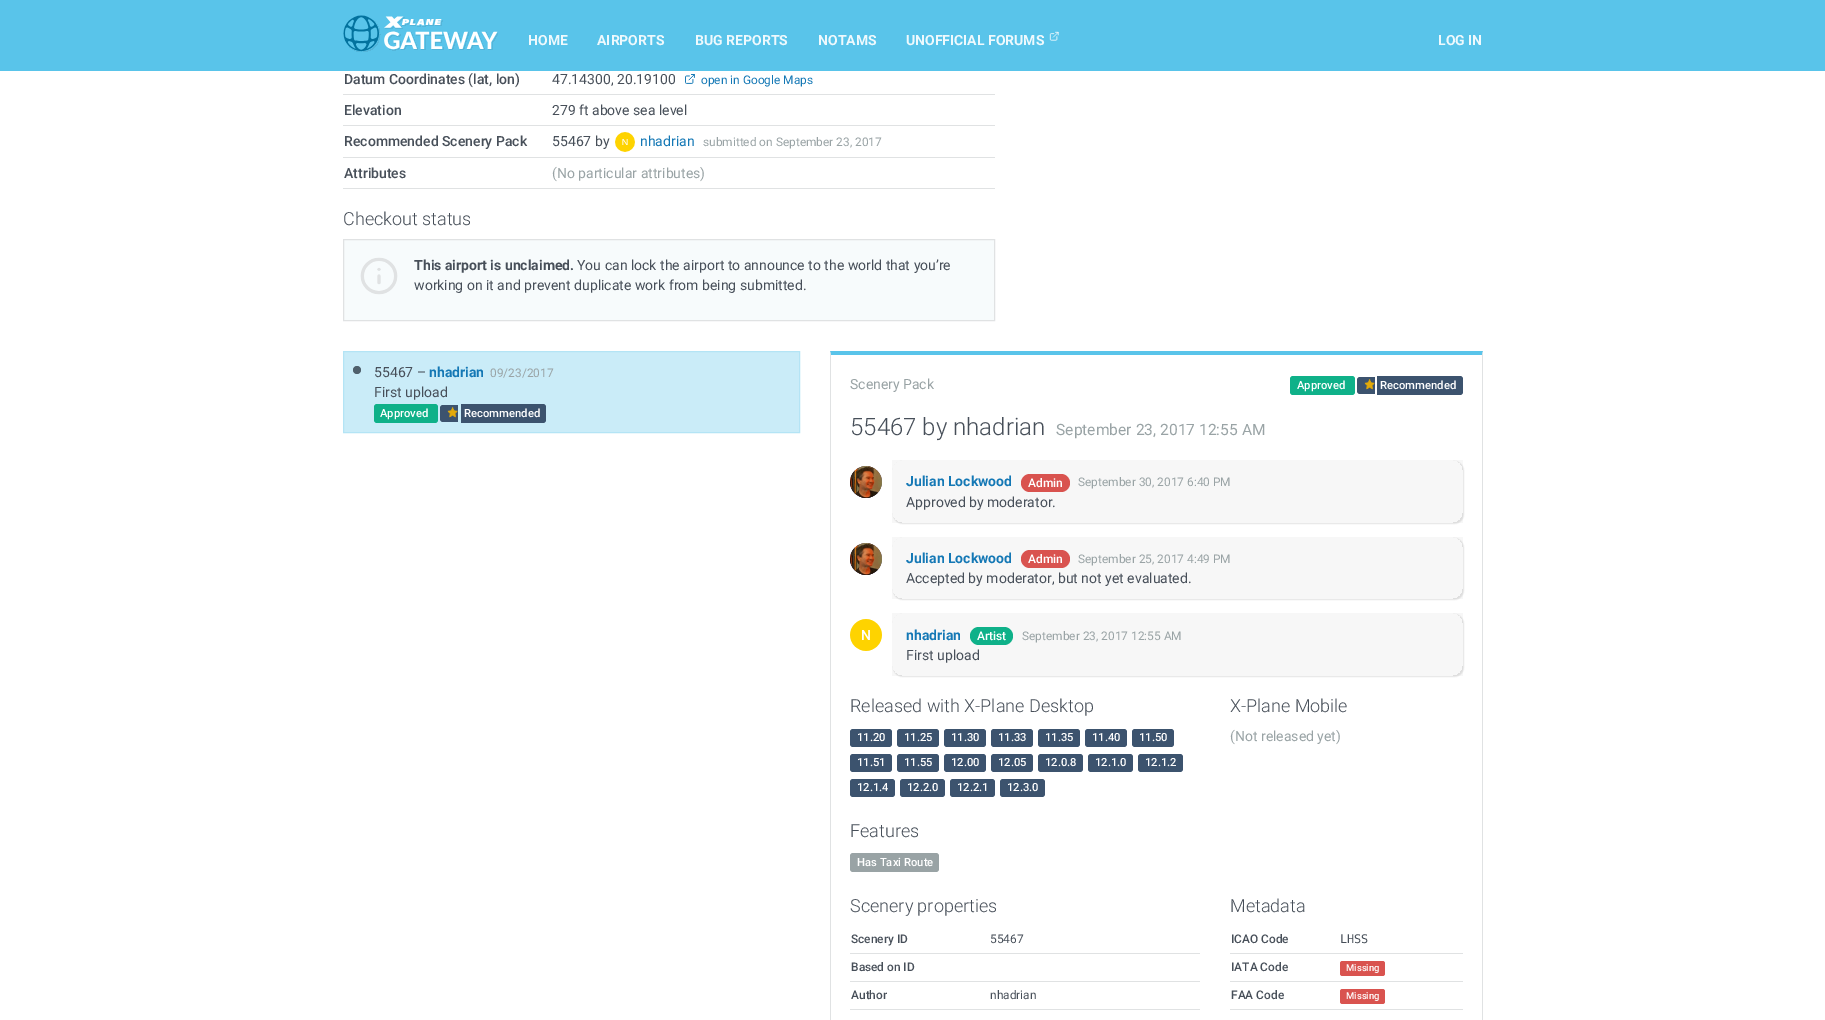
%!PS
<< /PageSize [1825 1020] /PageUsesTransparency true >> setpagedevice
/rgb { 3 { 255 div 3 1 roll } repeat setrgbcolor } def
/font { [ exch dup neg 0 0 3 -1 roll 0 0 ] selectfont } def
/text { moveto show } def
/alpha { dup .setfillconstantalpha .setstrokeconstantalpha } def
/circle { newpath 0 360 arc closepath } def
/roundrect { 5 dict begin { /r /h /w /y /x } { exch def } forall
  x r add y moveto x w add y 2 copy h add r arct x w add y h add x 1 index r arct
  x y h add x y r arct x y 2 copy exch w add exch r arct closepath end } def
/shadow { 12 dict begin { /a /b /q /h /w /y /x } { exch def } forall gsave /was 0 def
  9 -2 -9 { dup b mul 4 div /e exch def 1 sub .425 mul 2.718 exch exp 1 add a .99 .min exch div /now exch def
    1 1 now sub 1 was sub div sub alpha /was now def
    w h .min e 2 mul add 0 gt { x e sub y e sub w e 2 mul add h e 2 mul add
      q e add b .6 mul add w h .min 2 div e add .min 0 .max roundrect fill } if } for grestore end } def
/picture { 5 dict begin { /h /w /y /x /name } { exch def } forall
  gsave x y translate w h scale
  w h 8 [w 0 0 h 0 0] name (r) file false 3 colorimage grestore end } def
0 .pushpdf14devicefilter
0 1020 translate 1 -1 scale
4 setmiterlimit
255 255 255 rgb
0 0 1825 1020 rectfill
89 196 234 rgb
0 0 1825 71 rectfill
(img_01.rgb) 343 15 155 37 picture
(img_02.rgb) 1049 31 10 10 picture
224 226 227 rgb
343 94 652 1 rectfill
(img_03.rgb) 685 74 10 10 picture
343 125 652 1 rectfill
343 157 652 1 rectfill
(img_04.rgb) 615 132 20 20 picture
343 188 652 1 rectfill
247 251 252 rgb
343.5 239.5 moveto 651 0 rlineto 0 81 rlineto -651 0 rlineto closepath gsave fill grestore
224 226 227 rgb
stroke
(img_05.rgb) 360 257 38 38 picture
202 236 248 rgb
343.5 351.5 moveto 456 0 rlineto 0 81 rlineto -456 0 rlineto closepath gsave fill grestore
180 228 245 rgb
stroke
79 96 108 rgb
357 370 4 circle fill
15 177 137 rgb
374 404 64 19 3 roundrect fill
60 83 110 rgb
443 405 moveto 15 0 rlineto 0 17 rlineto -15 0 rlineto -1.5 0 -3 -1.5 -3 -3 rcurveto 0 -11 rlineto 0 -1.5 1.5 -3 3 -3 rcurveto closepath fill
461 404 moveto 82 0 rlineto 1.5 0 3 1.5 3 3 rcurveto 0 13 rlineto 0 1.5 -1.5 3 -3 3 rcurveto -82 0 rlineto closepath fill
(img_06.rgb) 447 407 11 11 picture
89 196 234 rgb
830 351 moveto 653 0 rlineto -1 4 rlineto -651 0 rlineto closepath fill
224 226 227 rgb
1483 351 moveto 0 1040 rlineto -1 -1 rlineto 0 -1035 rlineto closepath fill
830 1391 moveto 0 -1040 rlineto 1 4 rlineto 0 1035 rlineto closepath fill
15 177 137 rgb
1290 376 65 19 3 roundrect fill
60 83 110 rgb
1360 377 moveto 15 0 rlineto 0 17 rlineto -15 0 rlineto -1.5 0 -3 -1.5 -3 -3 rcurveto 0 -11 rlineto 0 -1.5 1.5 -3 3 -3 rcurveto closepath fill
1377 376 moveto 83 0 rlineto 1.5 0 3 1.5 3 3 rcurveto 0 13 rlineto 0 1.5 -1.5 3 -3 3 rcurveto -83 0 rlineto closepath fill
(img_06.rgb) 1364 379 11 11 picture
(img_07.rgb) 850 466 32 32 picture
(img_08.rgb) 850 466 32 32 picture
gsave
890 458 moveto 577 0 rlineto 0 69 rlineto -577 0 rlineto closepath 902 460 moveto 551 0 rlineto 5.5 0 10 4.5 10 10 rcurveto 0 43 rlineto 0 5.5 -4.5 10 -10 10 rcurveto -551 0 rlineto -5.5 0 -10 -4.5 -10 -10 rcurveto 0 -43 rlineto 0 -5.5 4.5 -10 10 -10 rcurveto closepath eoclip newpath
0 0 0 rgb
893 461 571 63 10 0.5 0.1 shadow
grestore
0.03 alpha
0 0 0 rgb
892 460 571 63 rectfill
1 alpha
217 83 79 rgb
1021 474 49 18 9 roundrect fill
(img_07.rgb) 850 543 32 32 picture
(img_08.rgb) 850 543 32 32 picture
gsave
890 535 moveto 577 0 rlineto 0 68 rlineto -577 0 rlineto closepath 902 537 moveto 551 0 rlineto 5.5 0 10 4.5 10 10 rcurveto 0 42 rlineto 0 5.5 -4.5 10 -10 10 rcurveto -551 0 rlineto -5.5 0 -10 -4.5 -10 -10 rcurveto 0 -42 rlineto 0 -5.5 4.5 -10 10 -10 rcurveto closepath eoclip newpath
0 0 0 rgb
893 538 571 62 10 0.5 0.1 shadow
grestore
0.03 alpha
0 0 0 rgb
892 537 571 62 rectfill
1 alpha
217 83 79 rgb
1021 550 49 18 9 roundrect fill
(img_09.rgb) 850 619 32 32 picture
gsave
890 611 moveto 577 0 rlineto 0 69 rlineto -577 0 rlineto closepath 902 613 moveto 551 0 rlineto 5.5 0 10 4.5 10 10 rcurveto 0 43 rlineto 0 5.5 -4.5 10 -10 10 rcurveto -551 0 rlineto -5.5 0 -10 -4.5 -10 -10 rcurveto 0 -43 rlineto 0 -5.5 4.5 -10 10 -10 rcurveto closepath eoclip newpath
0 0 0 rgb
893 614 571 63 10 0.5 0.1 shadow
grestore
0.03 alpha
0 0 0 rgb
892 613 571 63 rectfill
1 alpha
15 177 137 rgb
970 627 43 18 9 roundrect fill
60 83 110 rgb
850 729 42 18 3 roundrect fill
897 729 42 18 3 roundrect fill
944 729 42 18 3 roundrect fill
991 729 42 18 3 roundrect fill
1038 729 42 18 3 roundrect fill
1085 729 42 18 3 roundrect fill
1132 729 42 18 3 roundrect fill
850 754 42 18 3 roundrect fill
897 754 42 18 3 roundrect fill
944 754 42 18 3 roundrect fill
991 754 42 18 3 roundrect fill
1038 754 45 18 3 roundrect fill
1088 754 45 18 3 roundrect fill
1138 754 45 18 3 roundrect fill
850 779 45 18 3 roundrect fill
900 779 45 18 3 roundrect fill
950 779 45 18 3 roundrect fill
1000 779 45 18 3 roundrect fill
153 163 165 rgb
850 853 89 19 3 roundrect fill
224 226 227 rgb
850 953 350 1 rectfill
850 981 350 1 rectfill
850 1009 350 1 rectfill
1230 953 233 1 rectfill
1230 981 233 1 rectfill
217 83 79 rgb
1340 961 45 15 2.5 roundrect fill
224 226 227 rgb
1230 1009 233 1 rectfill
217 83 79 rgb
1340 989 45 15 2.5 roundrect fill
/Roboto-Bold 14 font
238 249 253 rgb
(HOME) 528 45 text
(AIRPORTS) 597 45 text
(BUG REPORTS) 695 45 text
(NOTAMS) 818 45 text
(UNOFFICIAL FORUMS) 906 45 text
(LOG IN) 1438 45 text
/Roboto-Medium 14 font
71 79 89 rgb
(Datum Coordinates \(lat, lon\)) 344 84 text
/Roboto-Regular 14 font
(47.14300, 20.19100) 552 84 text
/Roboto-Regular 11.9 font
20 120 181 rgb
(open in Google Maps) 701 84 text
/Roboto-Medium 14 font
71 79 89 rgb
(Elevation) 344 115 text
/Roboto-Regular 14 font
(279 ft above sea level) 552 115 text
/Roboto-Medium 14 font
(Recommended Scenery Pack) 344 146 text
/Roboto-Regular 14 font
(55467 by) 552 146 text
20 120 181 rgb
(nhadrian) 640 146 text
/Roboto-Regular 11.9 font
153 163 165 rgb
(submitted on September 23, 2017) 703 146 text
/Roboto-Medium 14 font
71 79 89 rgb
(Attributes) 344 178 text
/Roboto-Regular 14 font
153 163 165 rgb
(\(No particular attributes\)) 552 178 text
/Roboto-Light 18 font
71 79 89 rgb
(Checkout status) 343 225 text
/Roboto-Bold 14 font
(This airport is unclaimed.) 414 270 text
/Roboto-Regular 14 font
(You can lock the airport to announce to the world that you’re) 577 270 text
(working on it and prevent duplicate work from being submitted.) 414 290 text
(55467 –) 374 377 text
/Roboto-Bold 14 font
20 120 181 rgb
(nhadrian) 429 377 text
/Roboto-Regular 11.9 font
153 163 165 rgb
(09/23/2017) 490 377 text
/Roboto-Regular 14 font
71 79 89 rgb
(First upload) 374 397 text
/Roboto-Medium 11.25 font
255 255 255 rgb
(Approved) 380 417 text
(Recommended) 464 417 text
/Roboto-Regular 14 font
153 163 165 rgb
(Scenery Pack) 850 389 text
/Roboto-Medium 11.25 font
255 255 255 rgb
(Approved) 1297 389 text
(Recommended) 1380 389 text
/Roboto-Light 24 font
71 79 89 rgb
(55467 by nhadrian) 850 435 text
/Roboto-Regular 15.6 font
153 163 165 rgb
(September 23, 2017 12:55 AM) 1056 435 text
/Roboto-Bold 14 font
20 120 181 rgb
(Julian Lockwood) 906 486 text
/Roboto-Medium 12 font
255 255 255 rgb
(Admin) 1028 487 text
/Roboto-Regular 11.9 font
153 163 165 rgb
(September 30, 2017 6:40 PM) 1078 486 text
/Roboto-Regular 14 font
71 79 89 rgb
(Approved by moderator.) 906 507 text
/Roboto-Bold 14 font
20 120 181 rgb
(Julian Lockwood) 906 563 text
/Roboto-Medium 12 font
255 255 255 rgb
(Admin) 1028 563 text
/Roboto-Regular 11.9 font
153 163 165 rgb
(September 25, 2017 4:49 PM) 1078 563 text
/Roboto-Regular 14 font
71 79 89 rgb
(Accepted by moderator, but not yet evaluated.) 906 583 text
/Roboto-Bold 14 font
20 120 181 rgb
(nhadrian) 906 640 text
/Roboto-Medium 12 font
255 255 255 rgb
(Artist) 977 640 text
/Roboto-Regular 11.9 font
153 163 165 rgb
(September 23, 2017 12:55 AM) 1022 640 text
/Roboto-Regular 14 font
71 79 89 rgb
(First upload) 906 660 text
/Roboto-Light 18 font
(Released with X-Plane Desktop) 850 712 text
/Roboto-Medium 11.25 font
255 255 255 rgb
(11.20) 857 741 text
(11.25) 904 741 text
(11.30) 951 741 text
(11.33) 998 741 text
(11.35) 1045 741 text
(11.40) 1092 741 text
(11.50) 1139 741 text
(11.51) 857 766 text
(11.55) 904 766 text
(12.00) 951 766 text
(12.05) 998 766 text
(12.0.8) 1045 766 text
(12.1.0) 1095 766 text
(12.1.2) 1145 766 text
(12.1.4) 857 791 text
(12.2.0) 907 791 text
(12.2.1) 957 791 text
(12.3.0) 1007 791 text
/Roboto-Light 18 font
71 79 89 rgb
(X-Plane Mobile) 1230 712 text
/Roboto-Regular 14 font
153 163 165 rgb
(\(Not released yet\)) 1230 741 text
/Roboto-Light 18 font
71 79 89 rgb
(Features) 850 837 text
/Roboto-Medium 11.25 font
255 255 255 rgb
(Has Taxi Route) 857 866 text
/Roboto-Light 18 font
71 79 89 rgb
(Scenery properties) 850 912 text
/Roboto-Medium 11.9 font
(Scenery ID) 851 943 text
/Roboto-Regular 11.9 font
(55467) 990 943 text
/Roboto-Medium 11.9 font
(Based on ID) 851 971 text
(Author) 851 999 text
/Roboto-Regular 11.9 font
(nhadrian) 990 999 text
/Roboto-Light 18 font
(Metadata) 1230 912 text
/Roboto-Medium 11.9 font
(ICAO Code) 1231 943 text
/DejaVuSansMono-Regular 11.9 font
(LHSS) 1340 943 text
/Roboto-Medium 11.9 font
(IATA Code) 1231 971 text
/Roboto-Medium 9.5 font
255 255 255 rgb
(Missing) 1346 971 text
/Roboto-Medium 11.9 font
71 79 89 rgb
(FAA Code) 1231 999 text
/Roboto-Medium 9.5 font
255 255 255 rgb
(Missing) 1346 999 text
.poppdf14devicefilter showpage
